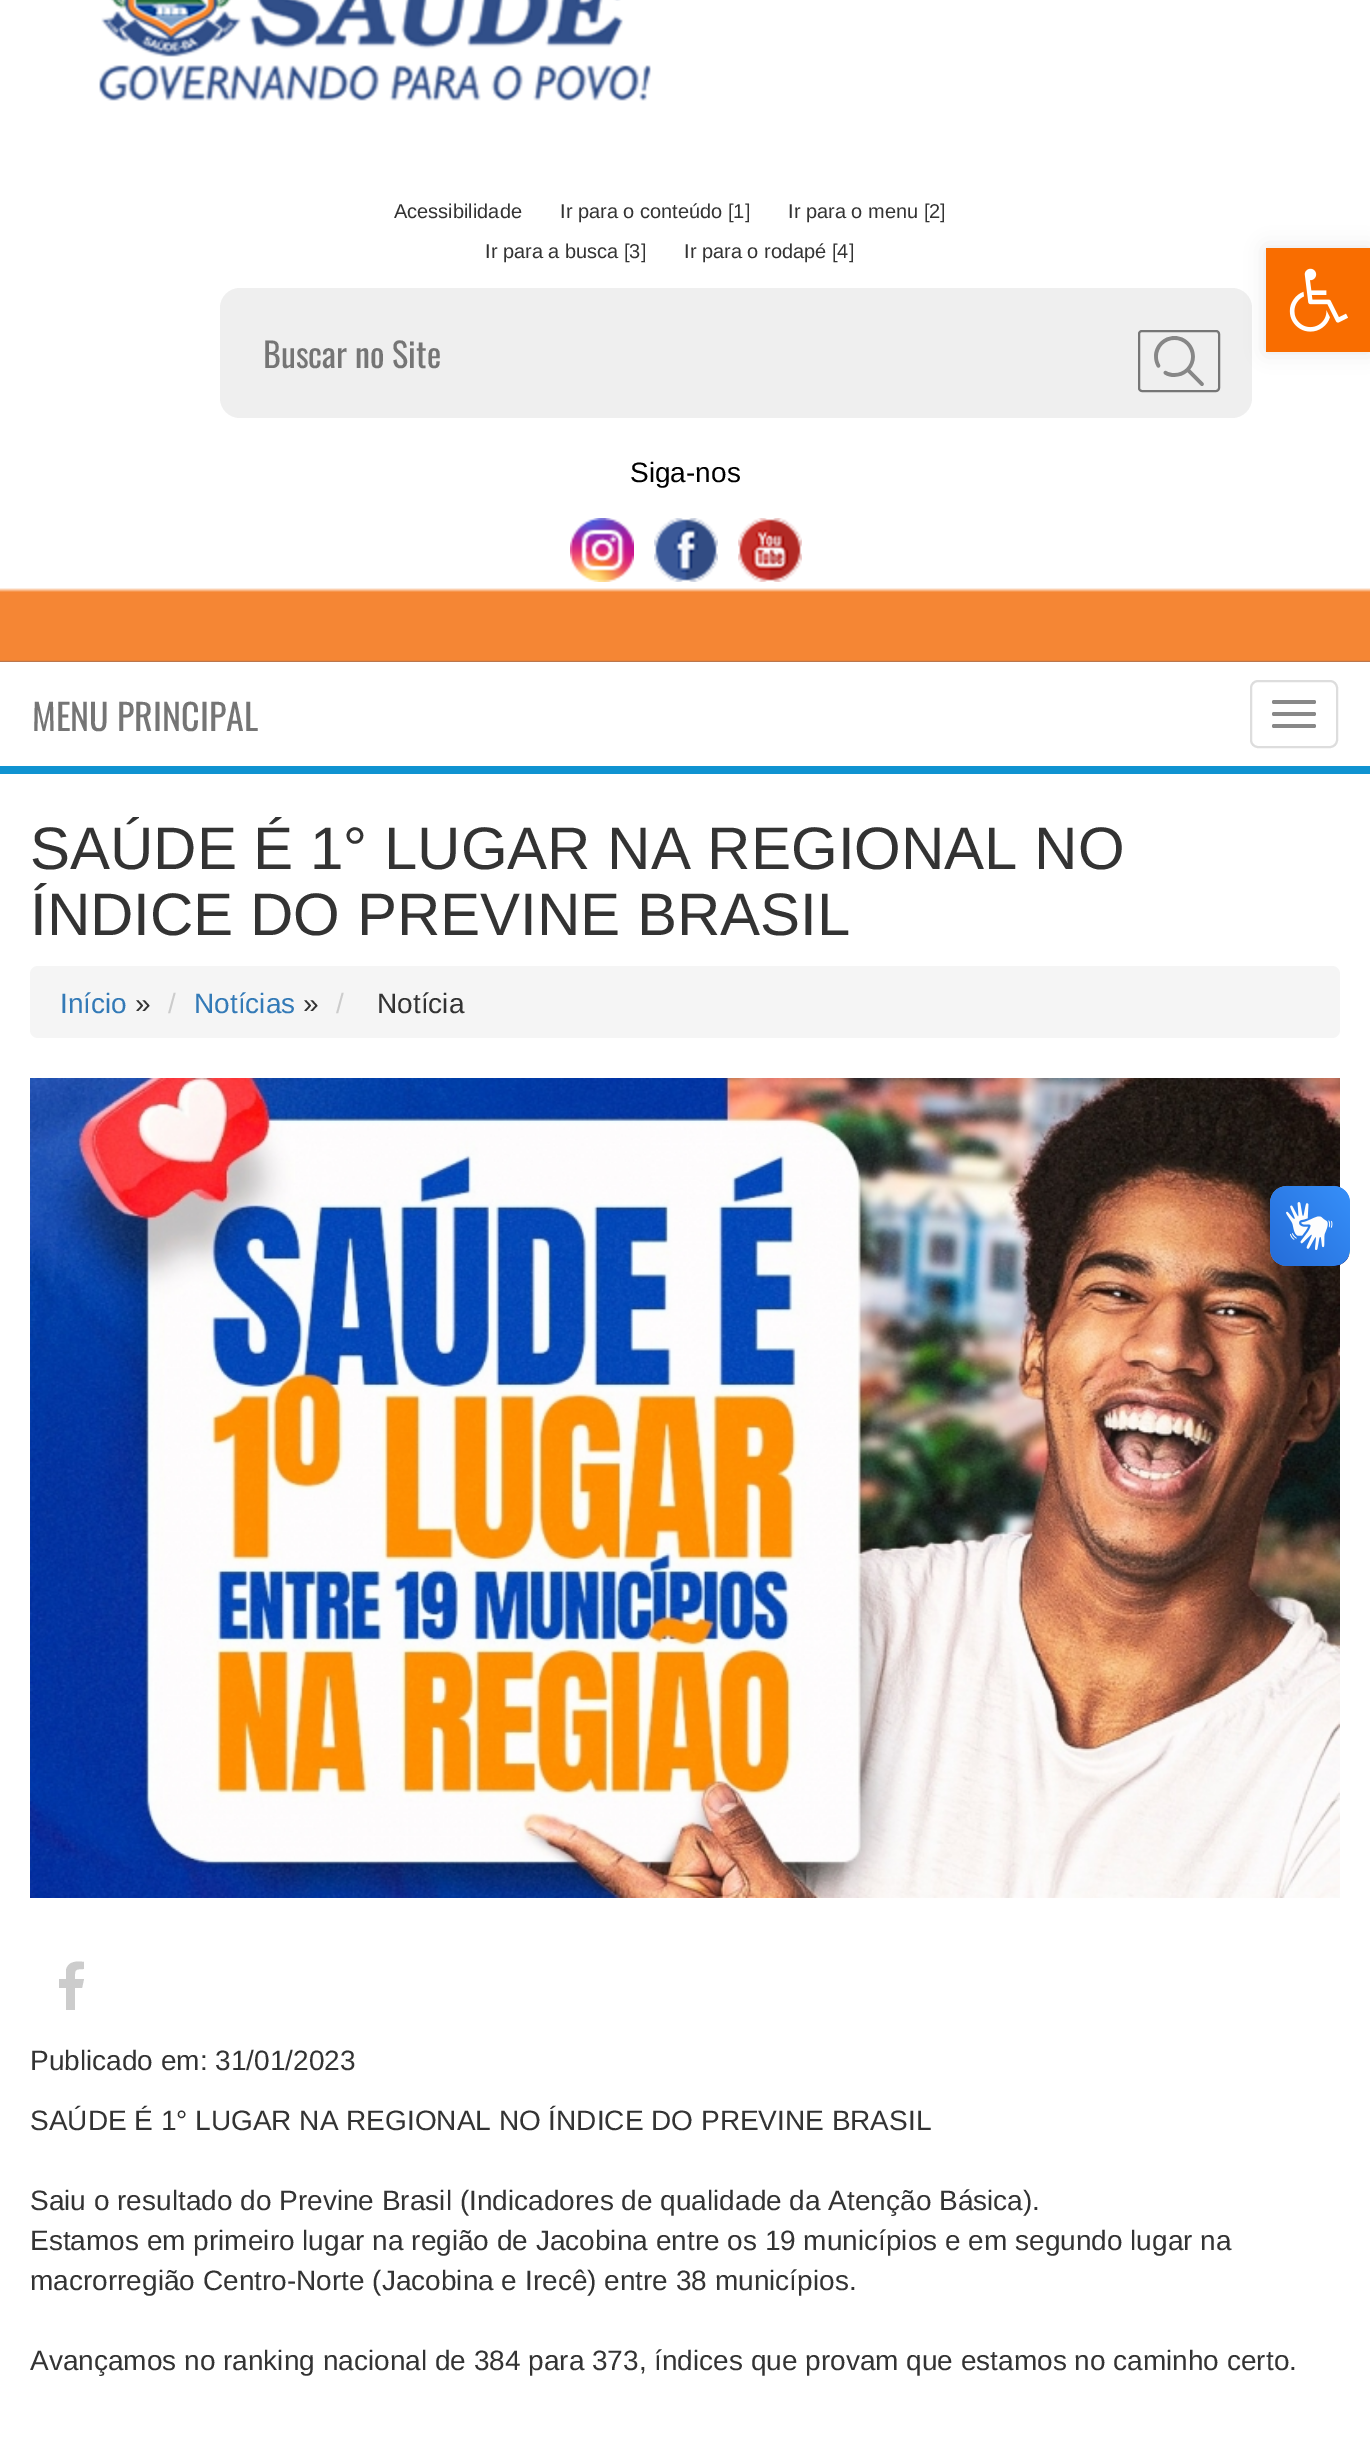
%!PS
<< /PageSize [1370 2452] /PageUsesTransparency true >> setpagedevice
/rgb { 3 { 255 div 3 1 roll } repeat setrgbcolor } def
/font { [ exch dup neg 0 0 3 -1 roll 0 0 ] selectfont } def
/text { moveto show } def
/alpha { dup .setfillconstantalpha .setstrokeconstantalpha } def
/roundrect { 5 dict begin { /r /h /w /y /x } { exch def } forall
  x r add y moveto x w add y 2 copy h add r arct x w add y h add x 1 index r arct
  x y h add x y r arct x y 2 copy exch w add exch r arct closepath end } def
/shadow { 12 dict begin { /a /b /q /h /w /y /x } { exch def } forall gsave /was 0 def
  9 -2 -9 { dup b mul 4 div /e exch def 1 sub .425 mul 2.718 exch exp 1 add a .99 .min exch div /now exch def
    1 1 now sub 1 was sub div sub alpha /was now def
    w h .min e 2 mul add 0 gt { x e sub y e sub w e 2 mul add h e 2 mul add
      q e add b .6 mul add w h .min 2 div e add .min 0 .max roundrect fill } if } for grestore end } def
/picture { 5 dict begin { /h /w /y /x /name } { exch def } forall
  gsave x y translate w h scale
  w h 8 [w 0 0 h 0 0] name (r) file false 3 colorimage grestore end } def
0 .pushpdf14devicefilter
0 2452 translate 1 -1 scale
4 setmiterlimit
255 255 255 rgb
0 0 1370 2452 rectfill
(img_01.rgb) 0 588 1370 74 picture
(img_02.rgb) 99 0 552 101 picture
239 239 239 rgb
220 288 1032 130 20 roundrect fill
118 118 118 rgb
2 setlinewidth
1139 331 80 60 3 roundrect stroke
(img_03.rgb) 1154 336 50 50 picture
(img_04.rgb) 570 518 64 64 picture
(img_05.rgb) 654 518 64 64 picture
(img_06.rgb) 738 518 64 64 picture
15 147 209 rgb
0 766 1370 8 rectfill
221 221 221 rgb
1251 681 86 66 7 roundrect stroke
136 136 136 rgb
1272 700 44 4 2 roundrect fill
1272 712 44 4 2 roundrect fill
1272 724 44 4 2 roundrect fill
245 245 245 rgb
30 966 1310 72 8 roundrect fill
(img_07.rgb) 30 1078 1310 820 picture
204 204 204 rgb
84 1962 moveto 0 7 rlineto -10 0 -9 1 -9 10 rcurveto 9 0 rlineto -2 9 rlineto -7 0 rlineto 0 22 rlineto -9 0 rlineto 0 -22 rlineto -7 0 rlineto 0 -9 rlineto 7 0 rlineto 0 -9 rlineto 2 -9 11 -9 18 -8 rcurveto closepath fill
(img_08.rgb) 1270 1186 80 80 picture
(img_09.rgb) 1270 1186 80 80 picture
0 0 0 rgb
1266 248 104 104 0 10 0.1 shadow
249 109 0 rgb
1266 248 104 104 rectfill
(img_10.rgb) 1289 268 59 64 picture
/LiberationSans-Regular 20 font
51 51 51 rgb
(Acessibilidade) 394 218 text
(Ir para o conteúdo [1]) 560 218 text
(Ir para o menu [2]) 788 218 text
(Ir para a busca [3]) 485 258 text
(Ir para o rodapé [4]) 684 258 text
/Oswald-Regular 34 font
117 117 117 rgb
(Buscar no Site) 263 368 text
/LiberationSans-Regular 28 font
0 0 0 rgb
(Siga-nos) 630 482 text
/Oswald-Regular 36 font
117 117 117 rgb
(MENU PRINCIPAL) 32 731 text
/LiberationSans-Regular 60 font
51 51 51 rgb
(SAÚDE É 1° LUGAR NA REGIONAL NO) 30 869 text
(ÍNDICE DO PREVINE BRASIL) 30 935 text
/LiberationSans-Regular 28 font
51 122 183 rgb
(Início) 60 1013 text
51 51 51 rgb
(») 135 1013 text
204 204 204 rgb
(/) 168 1013 text
51 122 183 rgb
(Notícias) 194 1013 text
51 51 51 rgb
(») 303 1013 text
204 204 204 rgb
(/) 336 1013 text
51 51 51 rgb
(Notícia) 377 1013 text
(Publicado em: 31/01/2023) 30 2070 text
(SAÚDE É 1° LUGAR NA REGIONAL NO ÍNDICE DO PREVINE BRASIL) 30 2130 text
(Saiu o resultado do Previne Brasil \(Indicadores de qualidade da Atenção Básica\).) 30 2210 text
(Estamos em primeiro lugar na região de Jacobina entre os 19 municípios e em segundo lugar na) 30 2250 text
(macrorregião Centro-Norte \(Jacobina e Irecê\) entre 38 municípios.) 30 2290 text
(Avançamos no ranking nacional de 384 para 373, índices que provam que estamos no caminho certo.) 30 2370 text
.poppdf14devicefilter showpage
